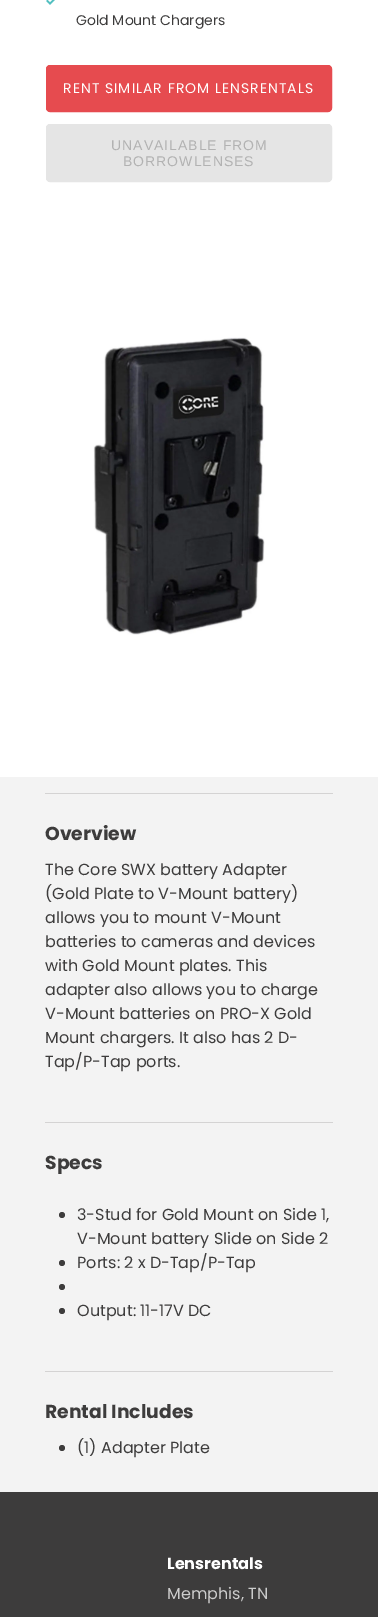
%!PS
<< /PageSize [378 1617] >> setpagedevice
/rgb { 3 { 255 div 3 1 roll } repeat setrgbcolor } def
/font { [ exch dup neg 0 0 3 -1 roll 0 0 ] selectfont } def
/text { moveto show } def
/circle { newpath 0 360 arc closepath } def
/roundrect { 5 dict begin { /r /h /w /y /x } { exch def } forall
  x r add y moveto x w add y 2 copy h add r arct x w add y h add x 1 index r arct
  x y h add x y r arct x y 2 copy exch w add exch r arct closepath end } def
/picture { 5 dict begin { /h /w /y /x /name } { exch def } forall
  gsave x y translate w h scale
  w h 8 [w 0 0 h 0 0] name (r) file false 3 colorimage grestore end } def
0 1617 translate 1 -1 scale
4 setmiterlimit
61 60 60 rgb
0 0 378 1617 rectfill
243 243 243 rgb
0 777 378 715 rectfill
255 255 255 rgb
0 0 378 777 rectfill
(img_01.rgb) 46 0 9 5 picture
230 75 79 rgb
46.5 65.5 285 46 3.5 roundrect gsave fill grestore
stroke
229 229 229 rgb
46.5 124.5 285 57 3.5 roundrect gsave fill grestore
stroke
(img_02.rgb) 93 337 172 298 picture
212 211 211 rgb
45 793 288 1 rectfill
45 1122 288 1 rectfill
61 60 60 rgb
62 1215 3 circle fill
62 1263 3 circle fill
62 1287 3 circle fill
62 1311 3 circle fill
212 211 211 rgb
45 1371 288 1 rectfill
61 60 60 rgb
62 1448 3 circle fill
/Poppins-Regular 14 font
(Gold Mount Chargers) 76 25 text
255 255 255 rgb
63 93 moveto 1 0 (RENT SIMILAR FROM LENSRENTALS) ashow
/LiberationSans-Regular 14 font
178 178 178 rgb
111 150 moveto 1 0 (UNAVAILABLE FROM) ashow
123 166 moveto 1 0 (BORROWLENSES) ashow
/Poppins-Bold 18.75 font
61 60 60 rgb
(Overview) 45 840 text
/Poppins-Regular 16 font
(The Core SWX battery Adapter) 45 875 text
(\(Gold Plate to V-Mount battery\)) 45 899 text
(allows you to mount V-Mount) 45 923 text
(batteries to cameras and devices) 45 947 text
(with Gold Mount plates. This) 45 971 text
(adapter also allows you to charge) 45 995 text
(V-Mount batteries on PRO-X Gold) 45 1019 text
(Mount chargers. It also has 2 D-) 45 1043 text
(Tap/P-Tap ports.) 45 1067 text
/Poppins-Bold 18.75 font
(Specs) 45 1169 text
/Poppins-Regular 16 font
(3-Stud for Gold Mount on Side 1,) 77 1220 text
(V-Mount battery Slide on Side 2) 77 1244 text
(Ports: 2 x D-Tap/P-Tap) 77 1268 text
(Output: 11-17V DC) 77 1316 text
/Poppins-Bold 18.75 font
(Rental Includes) 45 1418 text
/Poppins-Regular 16 font
(\(1\) Adapter Plate) 77 1453 text
/Poppins-Bold 16 font
255 255 255 rgb
(Lensrentals) 167 1569 text
/Poppins-Regular 16 font
204 204 204 rgb
(Memphis, TN) 167 1599 text
showpage
